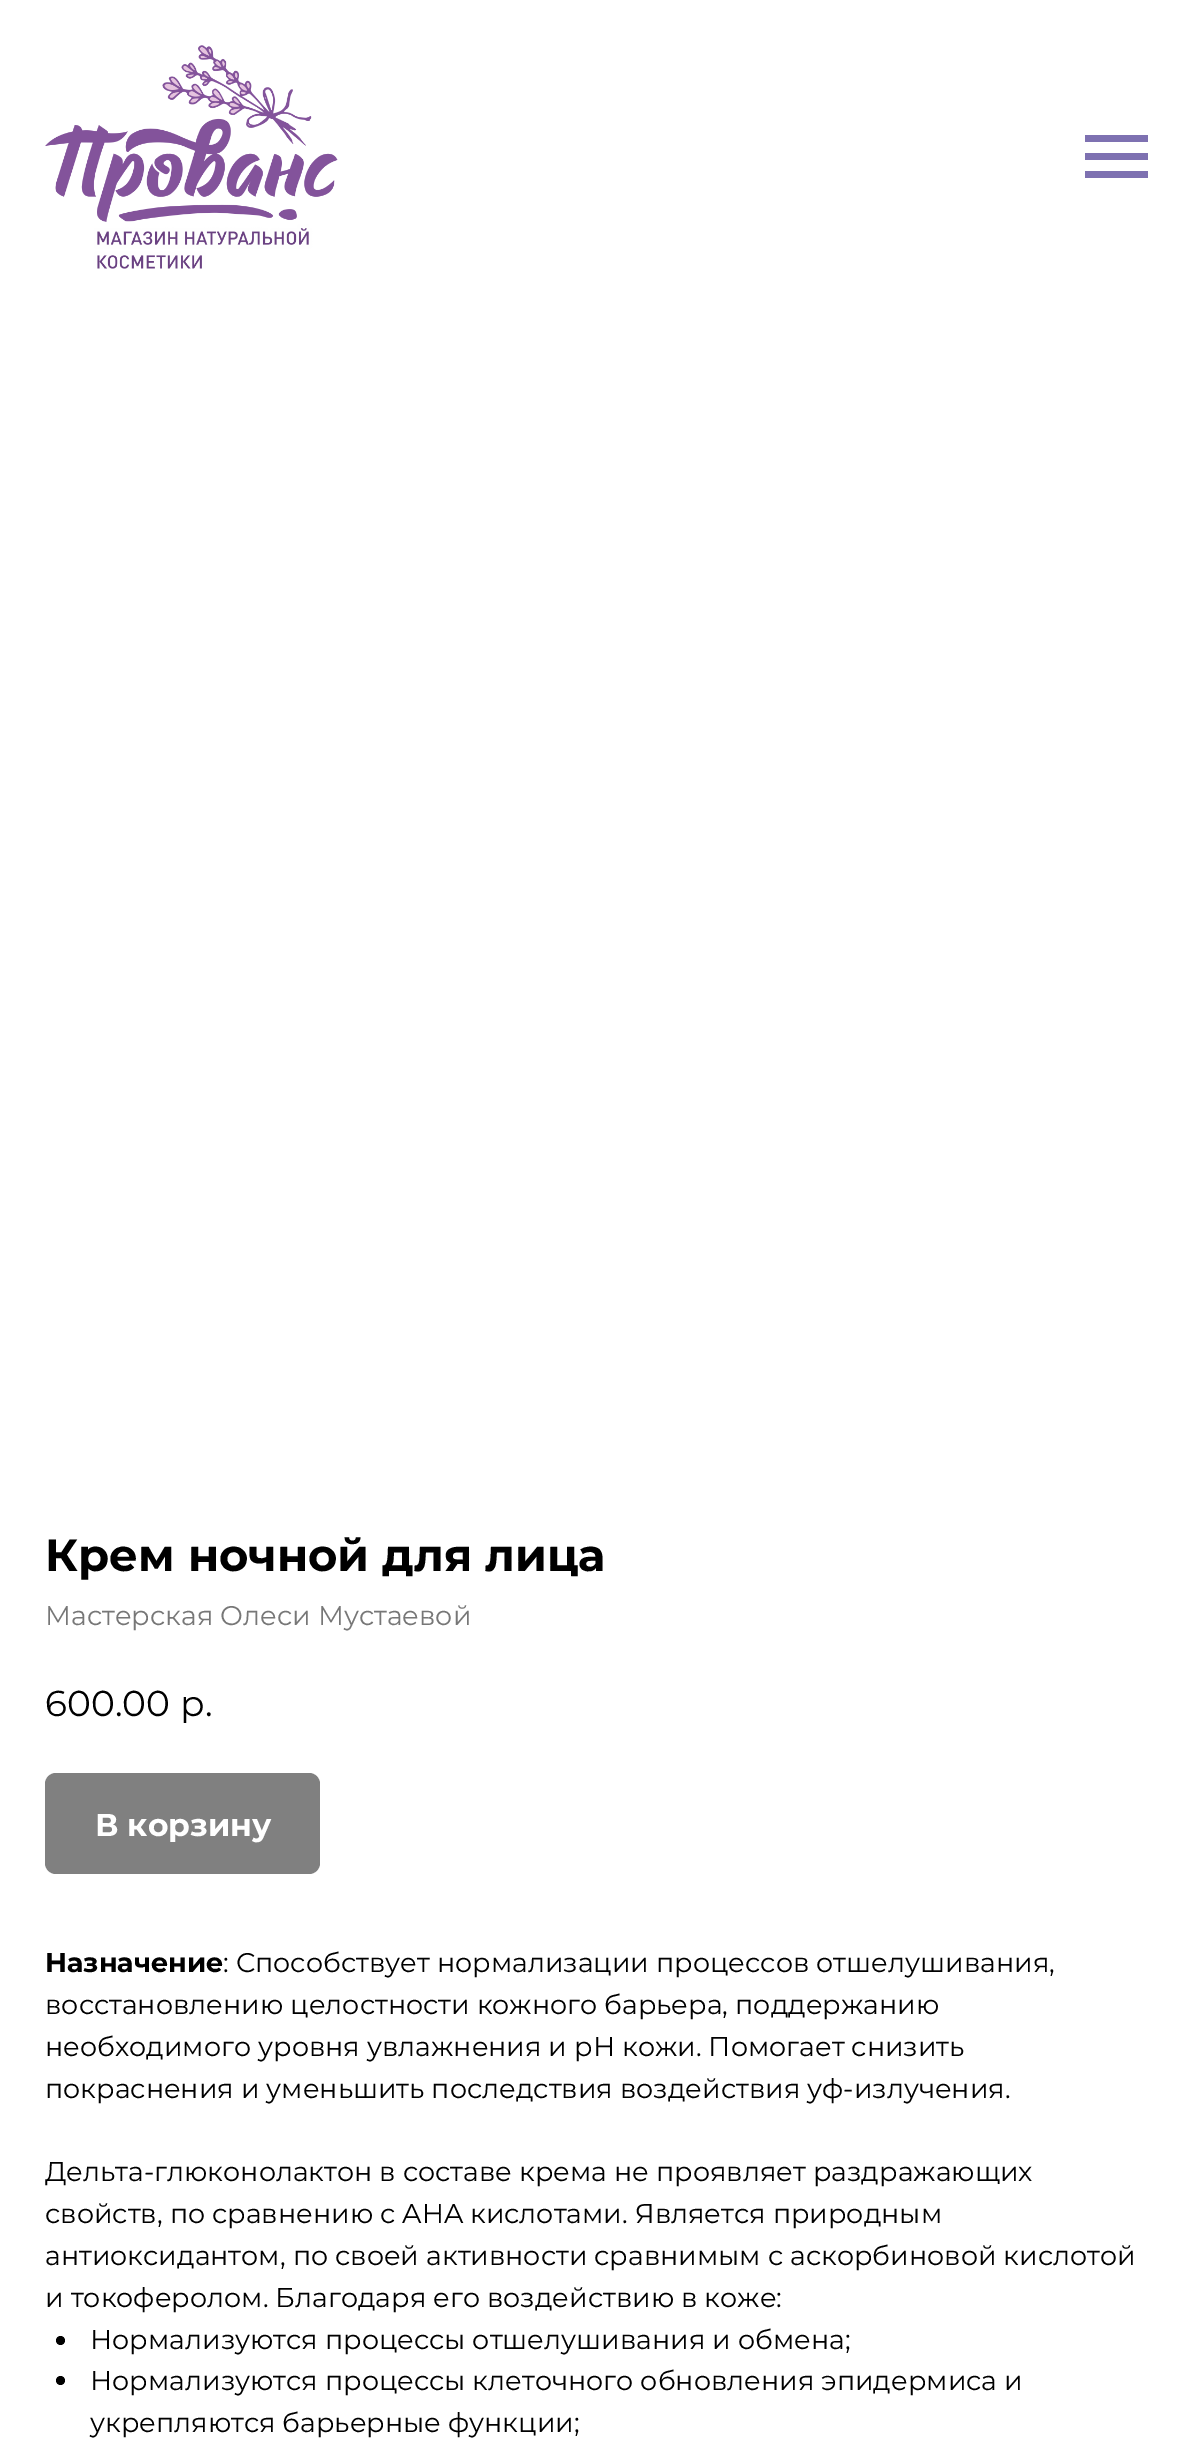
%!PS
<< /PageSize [1192 2438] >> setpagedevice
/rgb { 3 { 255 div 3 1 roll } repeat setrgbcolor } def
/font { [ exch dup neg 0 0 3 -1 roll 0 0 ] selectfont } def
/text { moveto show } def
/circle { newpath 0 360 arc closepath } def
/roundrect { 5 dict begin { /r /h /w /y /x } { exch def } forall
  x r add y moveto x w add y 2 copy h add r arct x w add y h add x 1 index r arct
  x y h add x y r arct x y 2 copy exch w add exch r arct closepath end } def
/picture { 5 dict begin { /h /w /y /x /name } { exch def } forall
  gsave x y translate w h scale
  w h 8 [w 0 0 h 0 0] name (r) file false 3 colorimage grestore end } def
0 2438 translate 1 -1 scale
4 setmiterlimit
255 255 255 rgb
0 0 1192 2438 rectfill
(img_01.rgb) 45 45 293 224 picture
126 113 177 rgb
1085 135 63 7 rectfill
1085 153 63 7 rectfill
1085 171 63 7 rectfill
128 128 128 rgb
45 1773 275 101 11 roundrect fill
0 0 0 rgb
60.5 2340.5 4.5 circle fill
60.5 2380.5 4.5 circle fill
/Montserrat-Bold 45 font
(Крем ночной для лица) 45 1571 text
/Montserrat-Regular 27 font
119 119 119 rgb
(Мастерская Олеси Мустаевой) 45 1625 text
/Montserrat-Regular 36 font
0 0 0 rgb
(600.00) 45 1716 text
(р.) 180 1716 text
/Montserrat-Bold 31.5 font
255 255 255 rgb
(В корзину) 95 1836 text
/Montserrat-Bold 27 font
0 0 0 rgb
(Назначение) 45 1972 text
/Montserrat-Regular 27 font
(: Способствует нормализации процессов отшелушивания,) 223 1972 text
(восстановлению целостности кожного барьера, поддержанию) 45 2014 text
(необходимого уровня увлажнения и рН кожи. Помогает снизить) 45 2056 text
(покраснения и уменьшить последствия воздействия уф-излучения.) 45 2098 text
(Дельта-глюконолактон в составе крема не проявляет раздражающих) 45 2181 text
(свойств, по сравнению с AHA кислотами. Является природным) 45 2223 text
(антиоксидантом, по своей активности сравнимым с аскорбиновой кислотой) 45 2265 text
(и токоферолом. Благодаря его воздействию в коже:) 45 2307 text
(Нормализуются процессы отшелушивания и обмена;) 90 2349 text
(Нормализуются процессы клеточного обновления эпидермиса и) 90 2390 text
(укрепляются барьерные функции;) 90 2432 text
showpage
